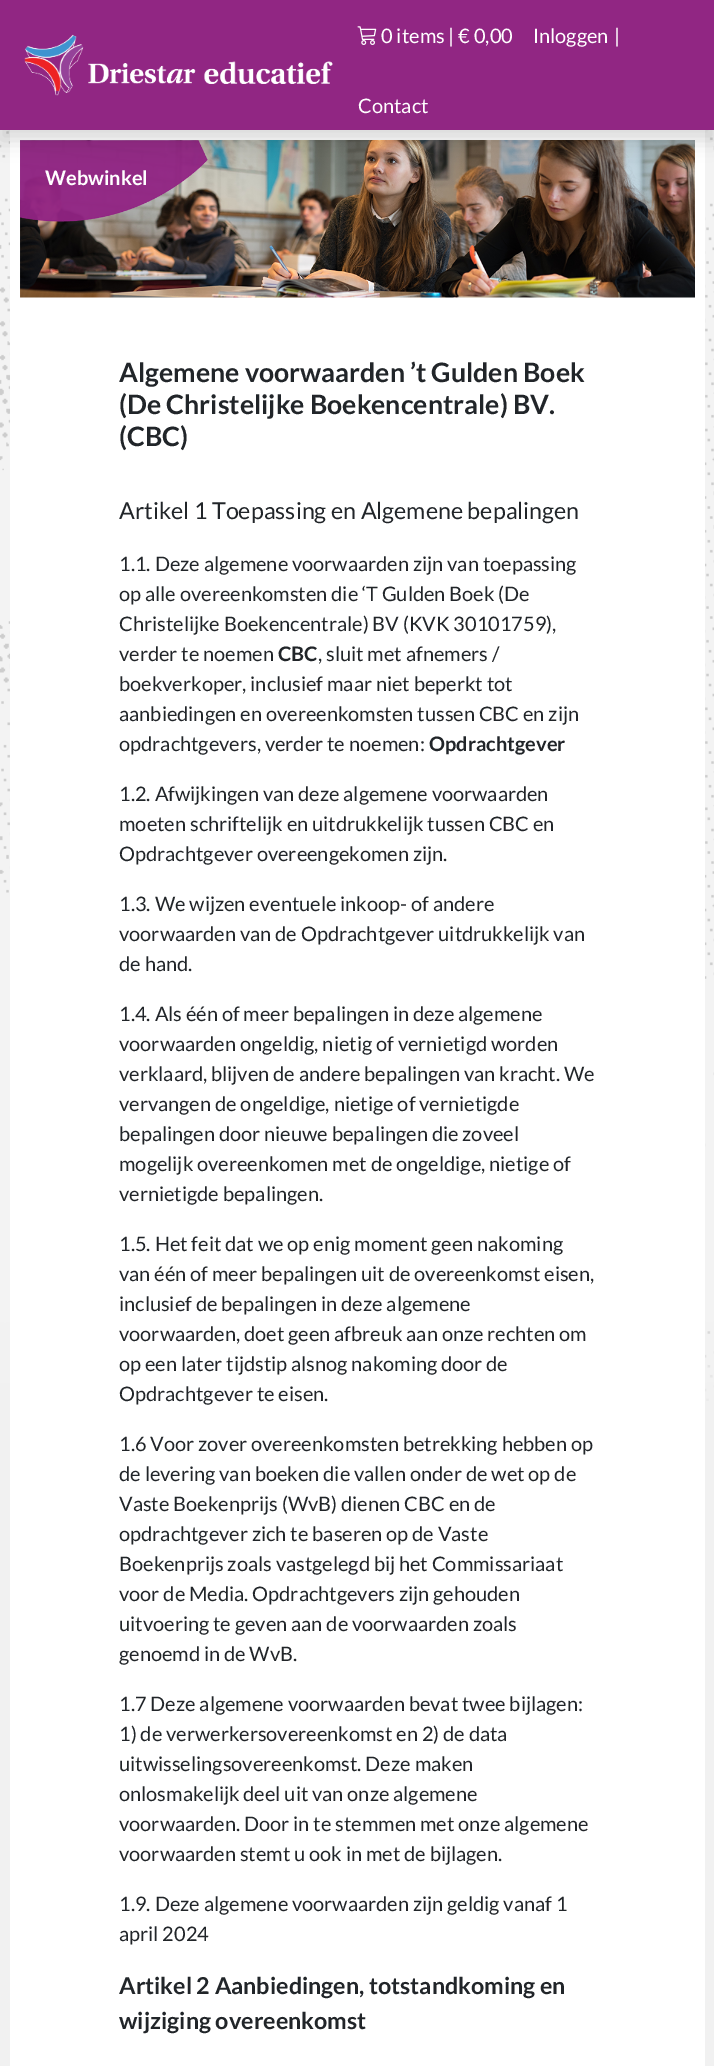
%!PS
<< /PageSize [714 2066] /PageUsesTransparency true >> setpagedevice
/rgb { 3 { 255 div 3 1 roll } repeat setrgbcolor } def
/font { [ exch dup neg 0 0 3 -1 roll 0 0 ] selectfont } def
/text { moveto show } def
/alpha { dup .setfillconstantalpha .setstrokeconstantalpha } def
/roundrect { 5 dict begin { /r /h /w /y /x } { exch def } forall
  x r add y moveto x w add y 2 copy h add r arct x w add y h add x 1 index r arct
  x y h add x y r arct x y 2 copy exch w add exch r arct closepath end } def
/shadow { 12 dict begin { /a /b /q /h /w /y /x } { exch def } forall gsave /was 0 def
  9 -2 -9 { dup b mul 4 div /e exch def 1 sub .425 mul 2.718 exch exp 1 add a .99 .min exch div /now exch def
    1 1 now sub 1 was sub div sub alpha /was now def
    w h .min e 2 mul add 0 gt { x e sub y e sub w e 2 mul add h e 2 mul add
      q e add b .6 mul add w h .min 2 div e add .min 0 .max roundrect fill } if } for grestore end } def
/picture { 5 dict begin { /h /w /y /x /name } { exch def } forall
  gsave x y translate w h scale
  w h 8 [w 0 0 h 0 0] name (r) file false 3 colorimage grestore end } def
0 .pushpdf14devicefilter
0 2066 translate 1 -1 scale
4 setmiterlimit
241 241 241 rgb
0 0 714 2066 rectfill
(img_01.rgb) 0 130 714 1271 picture
255 255 255 rgb
10 130 695 1936 rectfill
(img_04.rgb) 20 140 675 158 picture
(img_05.rgb) 20 140 188 82 picture
0 0 0 rgb
0 10 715 130 0 10 0.15 shadow
145 38 131 rgb
0 0 714 130 rectfill
(img_02.rgb) 24 34 309 62 picture
(img_03.rgb) 357 26 20 19 picture
/Lato-Regular 20 font
255 255 255 rgb
(0 items | € 0,00) 381 43 text
(Inloggen) 533 43 text
(|) 614 43 text
(Contact) 358 113 text
/Lato-Bold 20 font
(Webwinkel) 45 185 text
/Lato-Bold 26.7 font
33 37 41 rgb
(Algemene voorwaarden ’t Gulden Boek) 119 382 text
(\(De Christelijke Boekencentrale\) BV.) 119 414 text
(\(CBC\)) 119 446 text
/Lato-Regular 23.3 font
(Artikel 1 Toepassing en Algemene bepalingen) 119 519 text
/Lato-Regular 20 font
(1.1. Deze algemene voorwaarden zijn van toepassing) 119 571 text
(op alle overeenkomsten die ‘T Gulden Boek \(De) 119 601 text
(Christelijke Boekencentrale\) BV \(KVK 30101759\),) 119 631 text
(verder te noemen) 119 661 text
/Lato-Bold 20 font
(CBC) 278 661 text
/Lato-Regular 20 font
(, sluit met afnemers /) 318 661 text
(boekverkoper, inclusief maar niet beperkt tot) 119 691 text
(aanbiedingen en overeenkomsten tussen CBC en zijn) 119 721 text
(opdrachtgevers, verder te noemen:) 119 751 text
/Lato-Bold 20 font
(Opdrachtgever) 429 751 text
/Lato-Regular 20 font
(1.2. Afwijkingen van deze algemene voorwaarden) 119 801 text
(moeten schriftelijk en uitdrukkelijk tussen CBC en) 119 831 text
(Opdrachtgever overeengekomen zijn.) 119 861 text
(1.3. We wijzen eventuele inkoop- of andere) 119 911 text
(voorwaarden van de Opdrachtgever uitdrukkelijk van) 119 941 text
(de hand.) 119 971 text
(1.4. Als één of meer bepalingen in deze algemene) 119 1021 text
(voorwaarden ongeldig, nietig of vernietigd worden) 119 1051 text
(verklaard, blijven de andere bepalingen van kracht. We) 119 1081 text
(vervangen de ongeldige, nietige of vernietigde) 119 1111 text
(bepalingen door nieuwe bepalingen die zoveel) 119 1141 text
(mogelijk overeenkomen met de ongeldige, nietige of) 119 1171 text
(vernietigde bepalingen.) 119 1201 text
(1.5. Het feit dat we op enig moment geen nakoming) 119 1251 text
(van één of meer bepalingen uit de overeenkomst eisen,) 119 1281 text
(inclusief de bepalingen in deze algemene) 119 1311 text
(voorwaarden, doet geen afbreuk aan onze rechten om) 119 1341 text
(op een later tijdstip alsnog nakoming door de) 119 1371 text
(Opdrachtgever te eisen.) 119 1401 text
(1.6 Voor zover overeenkomsten betrekking hebben op) 119 1451 text
(de levering van boeken die vallen onder de wet op de) 119 1481 text
(Vaste Boekenprijs \(WvB\) dienen CBC en de) 119 1511 text
(opdrachtgever zich te baseren op de Vaste) 119 1541 text
(Boekenprijs zoals vastgelegd bij het Commissariaat) 119 1571 text
(voor de Media. Opdrachtgevers zijn gehouden) 119 1601 text
(uitvoering te geven aan de voorwaarden zoals) 119 1631 text
(genoemd in de WvB.) 119 1661 text
(1.7 Deze algemene voorwaarden bevat twee bijlagen:) 119 1711 text
(1\) de verwerkersovereenkomst en 2\) de data) 119 1741 text
(uitwisselingsovereenkomst. Deze maken) 119 1771 text
(onlosmakelijk deel uit van onze algemene) 119 1801 text
(voorwaarden. Door in te stemmen met onze algemene) 119 1831 text
(voorwaarden stemt u ook in met de bijlagen.) 119 1861 text
(1.9. Deze algemene voorwaarden zijn geldig vanaf 1) 119 1911 text
(april 2024) 119 1941 text
/Lato-Bold 23.3 font
(Artikel 2 Aanbiedingen, totstandkoming en) 119 1994 text
(wijziging overeenkomst) 119 2029 text
.poppdf14devicefilter showpage
